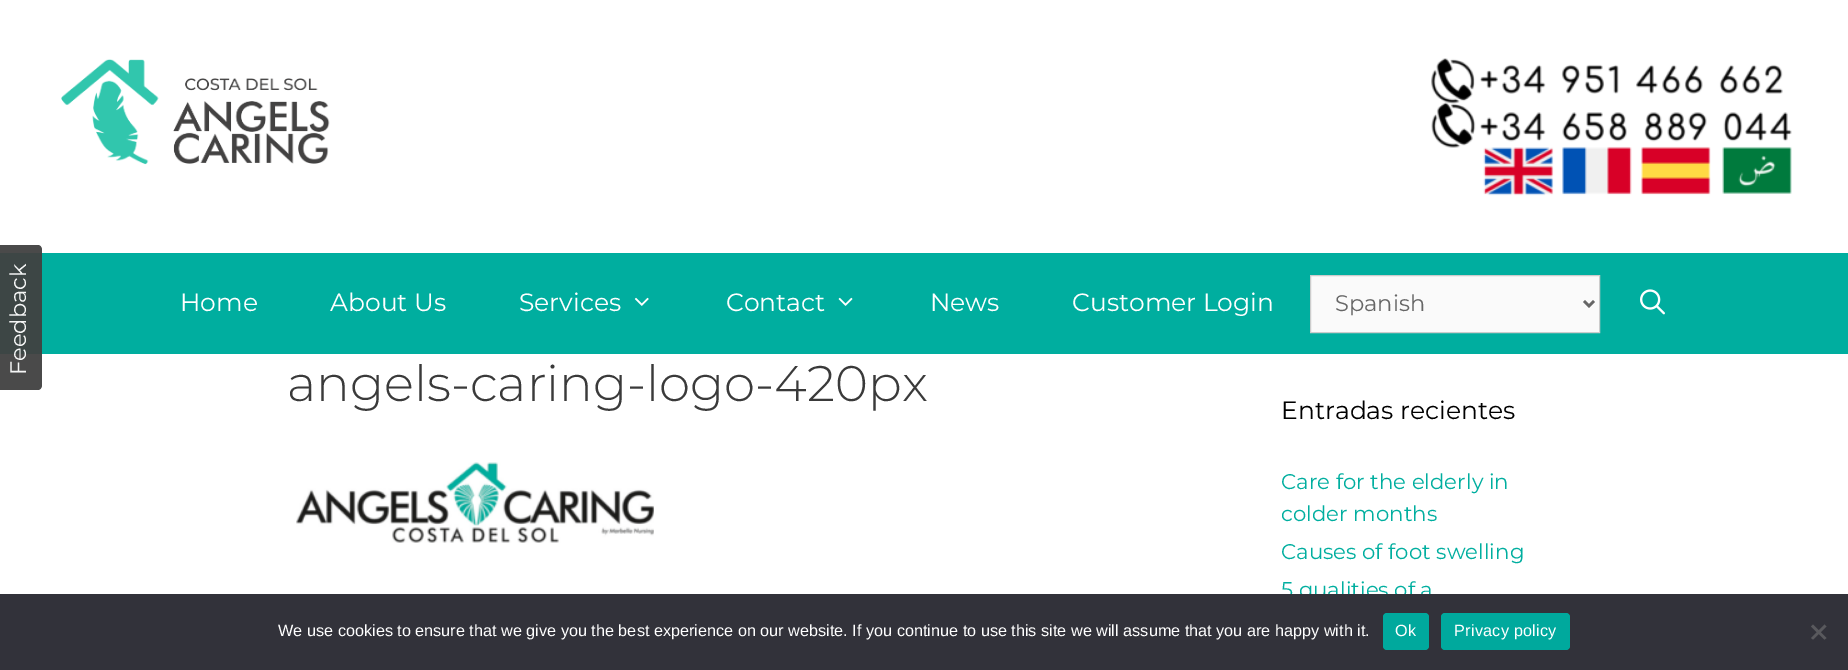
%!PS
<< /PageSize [1848 670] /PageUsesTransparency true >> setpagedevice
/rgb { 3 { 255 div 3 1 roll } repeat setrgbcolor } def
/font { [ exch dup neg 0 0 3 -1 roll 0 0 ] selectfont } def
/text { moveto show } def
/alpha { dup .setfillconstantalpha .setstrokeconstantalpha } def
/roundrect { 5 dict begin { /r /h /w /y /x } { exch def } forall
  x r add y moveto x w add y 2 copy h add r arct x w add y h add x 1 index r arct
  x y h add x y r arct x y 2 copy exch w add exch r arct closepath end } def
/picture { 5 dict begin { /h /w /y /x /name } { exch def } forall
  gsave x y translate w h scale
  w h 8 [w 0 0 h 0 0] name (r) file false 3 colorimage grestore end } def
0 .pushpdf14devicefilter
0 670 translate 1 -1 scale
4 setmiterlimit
255 255 255 rgb
0 0 1848 670 rectfill
(img_01.rgb) 61 59 269 106 picture
(img_02.rgb) 1431 58 361 138 picture
0 174 159 rgb
0 253 1848 101 rectfill
0.95 alpha
64 64 64 rgb
-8 385 moveto 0 -135 rlineto 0 -3 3 -5 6 -5 rcurveto 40 0 rlineto 2 0 4 2 4 5 rcurveto 0 135 rlineto 0 3 -2 5 -4 5 rcurveto -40 0 rlineto -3 0 -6 -2 -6 -5 rcurveto closepath fill
1 alpha
(img_03.rgb) 634 297 15 9 picture
(img_04.rgb) 838 297 15 9 picture
250 250 250 rgb
1310.5 275.5 moveto 289 0 rlineto 0 57 rlineto -289 0 rlineto closepath gsave fill grestore
204 204 204 rgb
stroke
102 102 102 rgb
2.5 setlinewidth
1584 301 moveto 5 5 rlineto 5 -5 rlineto stroke
(img_05.rgb) 1640 289 25 26 picture
(img_06.rgb) 296 462 358 81 picture
/Montserrat-Regular 22.5 font
245 246 246 rgb
gsave 26 375 translate -90 rotate 0 0 moveto (Feedback) show grestore
/Montserrat-Regular 25 font
255 255 255 rgb
(Home) 180 311 text
(About Us) 330 311 text
(Services) 519 311 text
(Contact) 726 311 text
(News) 930 311 text
(Customer Login) 1072 311 text
/Montserrat-Regular 22.5 font
102 102 102 rgb
(Spanish) 1335 311 text
/Montserrat-Light 50 font
58 58 58 rgb
(angels-caring-logo-420px) 287 401 text
/Montserrat-Regular 25 font
0 0 0 rgb
(Entradas recientes) 1281 419 text
/Montserrat-Regular 21.25 font
0 174 159 rgb
(Care for the elderly in) 1281 489 text
(colder months) 1281 521 text
(Causes of foot swelling) 1281 559 text
(5 qualities of a) 1281 597 text
50 50 58 rgb
0 594 1848 76 rectfill
/LiberationSans-Regular 16.25 font
255 255 255 rgb
(We use cookies to ensure that we give you the best experience on our website. If you continue to use this site we will assume that you are happy with it.) 278 636 text
0 169 157 rgb
1383 613 46 37 4 roundrect fill
255 255 255 rgb
1395 636 moveto 0.25 0 (Ok) ashow
0 169 157 rgb
1441 613 129 37 4 roundrect fill
255 255 255 rgb
1454 636 moveto 0.25 0 (Privacy policy) ashow
89 89 93 rgb
1824.5 624.5 moveto 2 2 rlineto -13.5 13 rlineto -2 -1.5 rlineto closepath fill
1811 626.5 moveto 2 -2 rlineto 13.5 13.5 rlineto -2 1.5 rlineto closepath fill
.poppdf14devicefilter showpage
